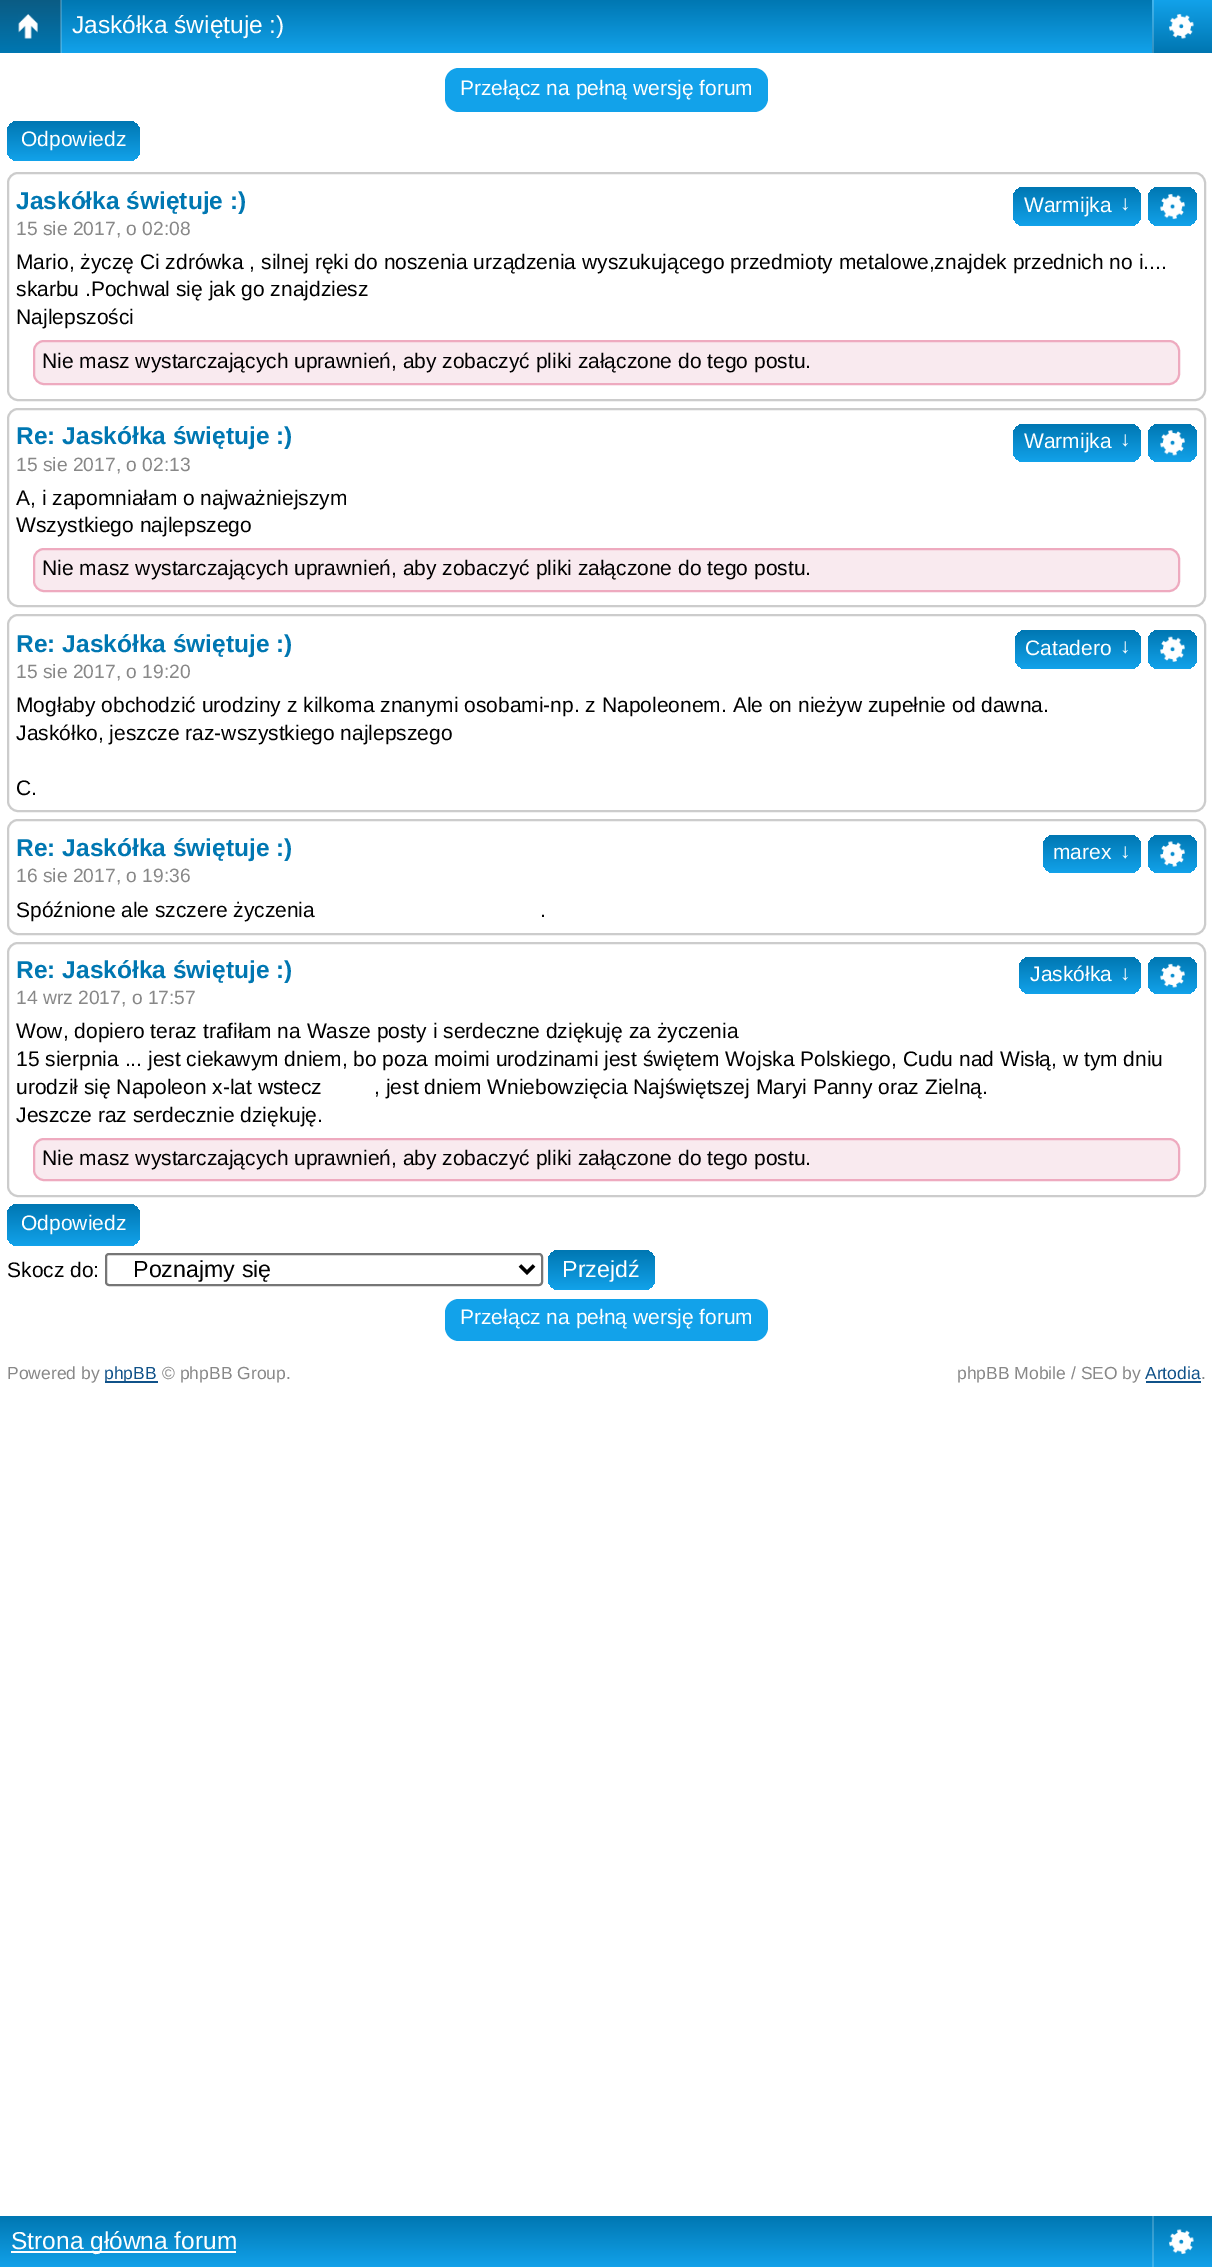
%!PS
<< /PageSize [1212 2267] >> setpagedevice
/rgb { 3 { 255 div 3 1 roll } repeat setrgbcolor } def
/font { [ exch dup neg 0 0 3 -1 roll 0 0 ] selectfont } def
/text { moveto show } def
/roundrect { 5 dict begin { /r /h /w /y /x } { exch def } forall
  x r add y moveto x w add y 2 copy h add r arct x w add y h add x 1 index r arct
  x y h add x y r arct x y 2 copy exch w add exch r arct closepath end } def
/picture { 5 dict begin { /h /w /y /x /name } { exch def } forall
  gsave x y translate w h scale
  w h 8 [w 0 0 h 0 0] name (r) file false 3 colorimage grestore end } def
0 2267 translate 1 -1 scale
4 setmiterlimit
255 255 255 rgb
0 0 1212 2267 rectfill
gsave 62 0 moveto 1090 0 rlineto 0 53 rlineto -1090 0 rlineto closepath clip newpath
<< /ShadingType 2 /ColorSpace /DeviceRGB /Coords [606 0 606 53] /Extend [true true] /Function << /FunctionType 2 /Domain [0 1] /C0 [0 0.467 0.698] /C1 [0.071 0.635 0.918] /N 1 >> >> shfill grestore
gsave 61 0 moveto 1 0 rlineto 0 53 rlineto -1 0 rlineto closepath clip newpath
<< /ShadingType 2 /ColorSpace /DeviceRGB /Coords [606 0 606 53] /Extend [true true] /Function << /FunctionType 2 /Domain [0 1] /C0 [0.2 0.573 0.757] /C1 [0.255 0.71 0.933] /N 1 >> >> shfill grestore
gsave 0 0 moveto 60 0 rlineto 0 53 rlineto -60 0 rlineto closepath clip newpath
<< /ShadingType 2 /ColorSpace /DeviceRGB /Coords [31 0 31 53] /Extend [true true] /Function << /FunctionType 2 /Domain [0 1] /C0 [0.043 0.361 0.518] /C1 [0 0.467 0.698] /N 1 >> >> shfill grestore
gsave 60 0 moveto 1 0 rlineto 0 53 rlineto -1 0 rlineto closepath clip newpath
<< /ShadingType 2 /ColorSpace /DeviceRGB /Coords [31 0 31 53] /Extend [true true] /Function << /FunctionType 2 /Domain [0 1] /C0 [0.235 0.49 0.616] /C1 [0.2 0.573 0.757] /N 1 >> >> shfill grestore
(img_01.rgb) 18 14 20 25 picture
gsave 1154 0 moveto 58 0 rlineto 0 53 rlineto -58 0 rlineto closepath clip newpath
<< /ShadingType 2 /ColorSpace /DeviceRGB /Coords [1182 0 1182 53] /Extend [true true] /Function << /FunctionType 2 /Domain [0 1] /C0 [0.071 0.635 0.918] /C1 [0 0.463 0.694] /N 1 >> >> shfill grestore
gsave 1152 0 moveto 2 0 rlineto 0 53 rlineto -2 0 rlineto closepath clip newpath
<< /ShadingType 2 /ColorSpace /DeviceRGB /Coords [1182 0 1182 53] /Extend [true true] /Function << /FunctionType 2 /Domain [0 1] /C0 [0.255 0.71 0.933] /C1 [0.2 0.569 0.757] /N 1 >> >> shfill grestore
(img_02.rgb) 1169 14 25 25 picture
18 162 234 rgb
445 68 323 44 14 roundrect fill
gsave 7 121 133 40 11 roundrect clip newpath
<< /ShadingType 2 /ColorSpace /DeviceRGB /Coords [74 121 74 161] /Extend [true true] /Function << /FunctionType 2 /Domain [0 1] /C0 [0 0.467 0.698] /C1 [0.071 0.635 0.918] /N 1 >> >> shfill grestore
204 204 204 rgb
2 setlinewidth
8 173 1197 227 10 roundrect stroke
gsave 1013 187 128 39 11 roundrect clip newpath
<< /ShadingType 2 /ColorSpace /DeviceRGB /Coords [1077 187 1077 226] /Extend [true true] /Function << /FunctionType 2 /Domain [0 1] /C0 [0 0.467 0.698] /C1 [0.071 0.635 0.918] /N 1 >> >> shfill grestore
gsave 1148 187 49 39 11 roundrect clip newpath
<< /ShadingType 2 /ColorSpace /DeviceRGB /Coords [1173 187 1173 226] /Extend [true true] /Function << /FunctionType 2 /Domain [0 1] /C0 [0 0.467 0.698] /C1 [0.071 0.635 0.918] /N 1 >> >> shfill grestore
(img_03.rgb) 1160 194 25 26 picture
249 234 239 rgb
34 341 1145 43 10 roundrect gsave fill grestore
238 170 191 rgb
stroke
204 204 204 rgb
8 409 1197 197 10 roundrect stroke
gsave 1013 424 128 38 11 roundrect clip newpath
<< /ShadingType 2 /ColorSpace /DeviceRGB /Coords [1077 424 1077 462] /Extend [true true] /Function << /FunctionType 2 /Domain [0 1] /C0 [0 0.467 0.698] /C1 [0.071 0.635 0.918] /N 1 >> >> shfill grestore
gsave 1148 424 49 38 11 roundrect clip newpath
<< /ShadingType 2 /ColorSpace /DeviceRGB /Coords [1173 424 1173 462] /Extend [true true] /Function << /FunctionType 2 /Domain [0 1] /C0 [0 0.467 0.698] /C1 [0.071 0.635 0.918] /N 1 >> >> shfill grestore
(img_04.rgb) 1160 430 25 26 picture
249 234 239 rgb
34 549 1145 42 10 roundrect gsave fill grestore
238 170 191 rgb
stroke
204 204 204 rgb
8 615 1197 196 10 roundrect stroke
gsave 1015 630 126 39 11 roundrect clip newpath
<< /ShadingType 2 /ColorSpace /DeviceRGB /Coords [1078 630 1078 669] /Extend [true true] /Function << /FunctionType 2 /Domain [0 1] /C0 [0 0.467 0.698] /C1 [0.071 0.635 0.918] /N 1 >> >> shfill grestore
gsave 1148 630 49 39 11 roundrect clip newpath
<< /ShadingType 2 /ColorSpace /DeviceRGB /Coords [1173 630 1173 669] /Extend [true true] /Function << /FunctionType 2 /Domain [0 1] /C0 [0 0.467 0.698] /C1 [0.071 0.635 0.918] /N 1 >> >> shfill grestore
(img_05.rgb) 1160 636 25 26 picture
8 820 1197 114 10 roundrect stroke
gsave 1043 835 98 38 11 roundrect clip newpath
<< /ShadingType 2 /ColorSpace /DeviceRGB /Coords [1092 835 1092 873] /Extend [true true] /Function << /FunctionType 2 /Domain [0 1] /C0 [0 0.467 0.698] /C1 [0.071 0.635 0.918] /N 1 >> >> shfill grestore
gsave 1148 835 49 38 11 roundrect clip newpath
<< /ShadingType 2 /ColorSpace /DeviceRGB /Coords [1173 835 1173 873] /Extend [true true] /Function << /FunctionType 2 /Domain [0 1] /C0 [0 0.467 0.698] /C1 [0.071 0.635 0.918] /N 1 >> >> shfill grestore
(img_06.rgb) 1160 841 25 26 picture
8 943 1197 253 10 roundrect stroke
gsave 1019 957 122 37 11 roundrect clip newpath
<< /ShadingType 2 /ColorSpace /DeviceRGB /Coords [1080 957 1080 994] /Extend [true true] /Function << /FunctionType 2 /Domain [0 1] /C0 [0 0.467 0.698] /C1 [0.071 0.635 0.918] /N 1 >> >> shfill grestore
gsave 1148 957 49 37 11 roundrect clip newpath
<< /ShadingType 2 /ColorSpace /DeviceRGB /Coords [1173 957 1173 994] /Extend [true true] /Function << /FunctionType 2 /Domain [0 1] /C0 [0 0.467 0.698] /C1 [0.071 0.635 0.918] /N 1 >> >> shfill grestore
(img_07.rgb) 1160 963 25 25 picture
249 234 239 rgb
34 1139 1145 41 10 roundrect gsave fill grestore
238 170 191 rgb
stroke
gsave 7 1204 133 42 11 roundrect clip newpath
<< /ShadingType 2 /ColorSpace /DeviceRGB /Coords [74 1204 74 1246] /Extend [true true] /Function << /FunctionType 2 /Domain [0 1] /C0 [0 0.467 0.698] /C1 [0.071 0.635 0.918] /N 1 >> >> shfill grestore
118 118 118 rgb
106 1254 436 31 3 roundrect stroke
0 0 0 rgb
3.5 setlinewidth
520 1265.5 moveto 7 7 rlineto 7 -7 rlineto stroke
gsave 548 1250 107 40 11 roundrect clip newpath
<< /ShadingType 2 /ColorSpace /DeviceRGB /Coords [601 1250 601 1290] /Extend [true true] /Function << /FunctionType 2 /Domain [0 1] /C0 [0 0.467 0.698] /C1 [0.071 0.635 0.918] /N 1 >> >> shfill grestore
18 162 234 rgb
445 1299 323 42 14 roundrect fill
16 82 137 rgb
105 1381 53 2 rectfill
1146 1381 55 2 rectfill
gsave 0 2216 moveto 1212 0 rlineto 0 51 rlineto -1212 0 rlineto closepath clip newpath
<< /ShadingType 2 /ColorSpace /DeviceRGB /Coords [606 2216 606 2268] /Extend [true true] /Function << /FunctionType 2 /Domain [0 1] /C0 [0 0.467 0.698] /C1 [0.071 0.635 0.918] /N 1 >> >> shfill grestore
gsave 1152 2216 moveto 2 0 rlineto 0 51 rlineto -2 0 rlineto closepath clip newpath
<< /ShadingType 2 /ColorSpace /DeviceRGB /Coords [606 2216 606 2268] /Extend [true true] /Function << /FunctionType 2 /Domain [0 1] /C0 [0.2 0.573 0.757] /C1 [0.255 0.71 0.933] /N 1 >> >> shfill grestore
255 255 255 rgb
11 2251 225 2 rectfill
(img_08.rgb) 1169 2229 25 25 picture
/LiberationSans-Regular 24.5 font
(Jaskółka świętuje :\)) 72 33 text
/LiberationSans-Regular 21 font
(Przełącz na pełną wersję forum) 460 95 text
(Odpowiedz) 21 146 text
/LiberationSans-Bold 24.5 font
0 119 178 rgb
(Jaskółka świętuje :\)) 16 209 text
/LiberationSans-Regular 21 font
255 255 255 rgb
(Warmijka) 1024 212 text
(↓) 1120 210 text
/LiberationSans-Regular 19.25 font
136 136 136 rgb
(15 sie 2017, o 02:08) 16 235 text
/LiberationSans-Regular 21 font
0 0 0 rgb
(Mario, życzę Ci zdrówka , silnej ręki do noszenia urządzenia wyszukującego przedmioty metalowe,znajdek przednich no i....) 16 269 text
(skarbu .Pochwal się jak go znajdziesz) 16 296 text
(Najlepszości) 16 324 text
(Nie masz wystarczających uprawnień, aby zobaczyć pliki załączone do tego postu.) 42 368 text
/LiberationSans-Bold 24.5 font
0 119 178 rgb
(Re: Jaskółka świętuje :\)) 16 444 text
/LiberationSans-Regular 21 font
255 255 255 rgb
(Warmijka) 1024 448 text
(↓) 1120 446 text
/LiberationSans-Regular 19.25 font
136 136 136 rgb
(15 sie 2017, o 02:13) 16 471 text
/LiberationSans-Regular 21 font
0 0 0 rgb
(A, i zapomniałam o najważniejszym) 16 505 text
(Wszystkiego najlepszego) 16 532 text
(Nie masz wystarczających uprawnień, aby zobaczyć pliki załączone do tego postu.) 42 575 text
/LiberationSans-Bold 24.5 font
0 119 178 rgb
(Re: Jaskółka świętuje :\)) 16 652 text
/LiberationSans-Regular 21 font
255 255 255 rgb
(Catadero) 1025 655 text
(↓) 1120 653 text
/LiberationSans-Regular 19.25 font
136 136 136 rgb
(15 sie 2017, o 19:20) 16 678 text
/LiberationSans-Regular 21 font
0 0 0 rgb
(Mogłaby obchodzić urodziny z kilkoma znanymi osobami-np. z Napoleonem. Ale on nieżyw zupełnie od dawna.) 16 712 text
(Jaskółko, jeszcze raz-wszystkiego najlepszego) 16 740 text
(C.) 16 795 text
/LiberationSans-Bold 24.5 font
0 119 178 rgb
(Re: Jaskółka świętuje :\)) 16 856 text
/LiberationSans-Regular 21 font
255 255 255 rgb
(marex) 1053 859 text
(↓) 1120 858 text
/LiberationSans-Regular 19.25 font
136 136 136 rgb
(16 sie 2017, o 19:36) 16 882 text
/LiberationSans-Regular 21 font
0 0 0 rgb
(Spóźnione ale szczere życzenia) 16 917 text
(.) 540 917 text
/LiberationSans-Bold 24.5 font
0 119 178 rgb
(Re: Jaskółka świętuje :\)) 16 978 text
/LiberationSans-Regular 21 font
255 255 255 rgb
(Jaskółka) 1030 981 text
(↓) 1120 980 text
/LiberationSans-Regular 19.25 font
136 136 136 rgb
(14 wrz 2017, o 17:57) 16 1004 text
/LiberationSans-Regular 21 font
0 0 0 rgb
(Wow, dopiero teraz trafiłam na Wasze posty i serdeczne dziękuję za życzenia) 16 1038 text
(15 sierpnia ... jest ciekawym dniem, bo poza moimi urodzinami jest świętem Wojska Polskiego, Cudu nad Wisłą, w tym dniu) 16 1066 text
(urodził się Napoleon x-lat wstecz) 16 1094 text
(, jest dniem Wniebowzięcia Najświętszej Maryi Panny oraz Zielną.) 374 1094 text
(Jeszcze raz serdecznie dziękuję.) 16 1122 text
(Nie masz wystarczających uprawnień, aby zobaczyć pliki załączone do tego postu.) 42 1165 text
255 255 255 rgb
(Odpowiedz) 21 1230 text
0 0 0 rgb
(Skocz do:) 7 1277 text
/LiberationSans-Regular 23.25 font
(Poznajmy się) 133 1277 text
255 255 255 rgb
(Przejdź) 562 1277 text
/LiberationSans-Regular 21 font
(Przełącz na pełną wersję forum) 460 1324 text
/LiberationSans-Regular 17.5 font
136 136 136 rgb
(Powered by) 7 1379 text
16 82 137 rgb
(phpBB) 104 1379 text
136 136 136 rgb
(© phpBB Group.) 162 1379 text
(phpBB Mobile / SEO by) 957 1379 text
16 82 137 rgb
(Artodia) 1145 1379 text
136 136 136 rgb
(.) 1201 1379 text
/LiberationSans-Regular 24.5 font
255 255 255 rgb
(Strona główna forum) 11 2249 text
showpage
